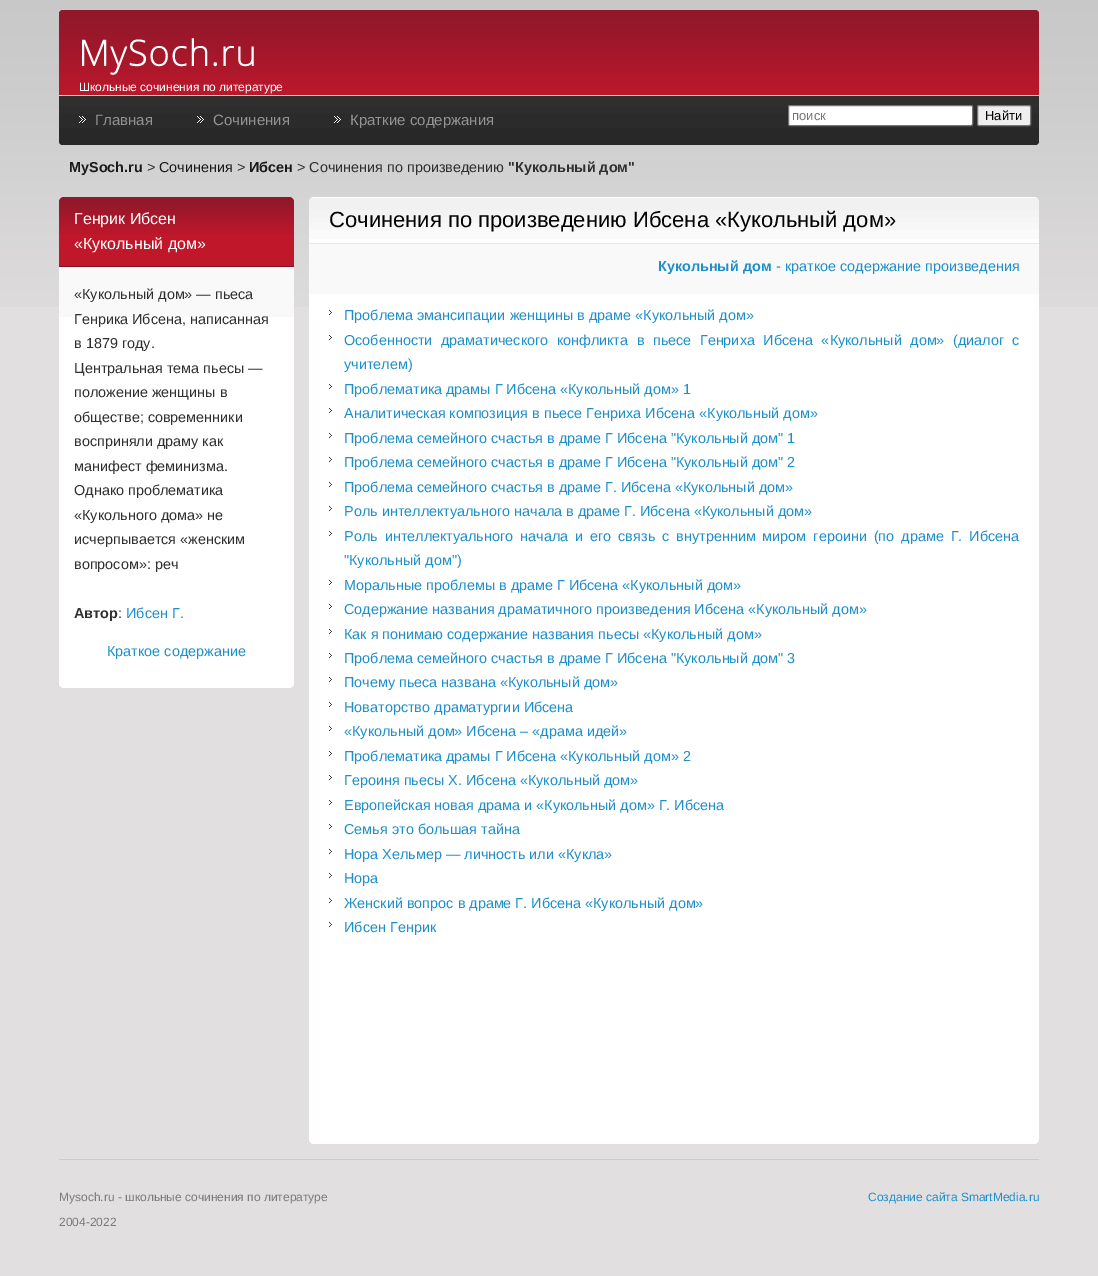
%!PS
<< /PageSize [1098 1276] >> setpagedevice
/rgb { 3 { 255 div 3 1 roll } repeat setrgbcolor } def
/font { [ exch dup neg 0 0 3 -1 roll 0 0 ] selectfont } def
/text { moveto show } def
/roundrect { 5 dict begin { /r /h /w /y /x } { exch def } forall
  x r add y moveto x w add y 2 copy h add r arct x w add y h add x 1 index r arct
  x y h add x y r arct x y 2 copy exch w add exch r arct closepath end } def
/picture { 5 dict begin { /h /w /y /x /name } { exch def } forall
  gsave x y translate w h scale
  w h 8 [w 0 0 h 0 0] name (r) file false 3 colorimage grestore end } def
0 1276 translate 1 -1 scale
4 setmiterlimit
225 223 223 rgb
0 0 1098 1276 rectfill
(img_01.rgb) 0 0 1098 307 picture
(img_02.rgb) 59 10 980 85 picture
(img_03.rgb) 82 38 172 37 picture
(img_04.rgb) 59 96 980 49 picture
(img_05.rgb) 79 116 7 7 picture
(img_05.rgb) 197 116 7 7 picture
(img_05.rgb) 334 116 7 7 picture
255 255 255 rgb
788.5 105.5 184 20 1.5 roundrect gsave fill grestore
118 118 118 rgb
stroke
239 239 239 rgb
977.5 105.5 53 20 1.5 roundrect gsave fill grestore
118 118 118 rgb
stroke
193 23 43 rgb
64 197 moveto 225 0 rlineto 3 0 5 2 5 5 rcurveto 0 65 rlineto -235 0 rlineto 0 -65 rlineto 0 -3 2 -5 5 -5 rcurveto closepath fill
(img_06.rgb) 59 197 235 38 picture
129 15 29 rgb
59 266 235 1 rectfill
255 255 255 rgb
59 267 moveto 235 0 rlineto 0 416 rlineto 0 3 -2 5 -5 5 rcurveto -225 0 rlineto -3 0 -5 -2 -5 -5 rcurveto closepath fill
249 249 249 rgb
59 267 235 50 rectfill
(img_07.rgb) 74 272 205 10 picture
255 255 255 rgb
314 197 moveto 720 0 rlineto 3 0 5 2 5 5 rcurveto 0 42 rlineto -730 0 rlineto 0 -42 rlineto 0 -3 2 -5 5 -5 rcurveto closepath fill
(img_08.rgb) 309 197 730 42 picture
233 233 233 rgb
309 243 730 1 rectfill
255 255 255 rgb
309 244 moveto 730 0 rlineto 0 895 rlineto 0 3 -2 5 -5 5 rcurveto -720 0 rlineto -3 0 -5 -2 -5 -5 rcurveto closepath fill
249 249 249 rgb
309 244 730 50 rectfill
(img_09.rgb) 329 310 3 5 picture
(img_09.rgb) 329 335 3 5 picture
(img_09.rgb) 329 384 3 5 picture
(img_09.rgb) 329 408 3 5 picture
(img_09.rgb) 329 433 3 5 picture
(img_09.rgb) 329 457 3 5 picture
(img_09.rgb) 329 482 3 5 picture
(img_09.rgb) 329 506 3 5 picture
(img_09.rgb) 329 531 3 5 picture
(img_09.rgb) 329 580 3 5 picture
(img_09.rgb) 329 604 3 5 picture
(img_09.rgb) 329 629 3 5 picture
(img_09.rgb) 329 653 3 5 picture
(img_09.rgb) 329 677 3 5 picture
(img_09.rgb) 329 702 3 5 picture
(img_09.rgb) 329 726 3 5 picture
(img_09.rgb) 329 751 3 5 picture
(img_09.rgb) 329 775 3 5 picture
(img_09.rgb) 329 800 3 5 picture
(img_09.rgb) 329 824 3 5 picture
(img_09.rgb) 329 849 3 5 picture
(img_09.rgb) 329 873 3 5 picture
(img_09.rgb) 329 898 3 5 picture
(img_09.rgb) 329 922 3 5 picture
204 204 204 rgb
59 1159 980 1 rectfill
/LiberationSans-Regular 12 font
255 255 255 rgb
(Школьные сочинения по литературе) 79 91 text
/LiberationSans-Regular 15 font
149 148 148 rgb
(Главная) 95 125 text
(Сочинения) 213 125 text
(Краткие содержания) 350 125 text
/LiberationSans-Regular 13 font
117 117 117 rgb
(поиск) 792 120 text
0 0 0 rgb
(Найти) 985 120 text
/LiberationSans-Bold 14.4 font
25 25 25 rgb
(MySoch.ru) 69 172 text
/LiberationSans-Regular 14.4 font
47 47 47 rgb
(>) 147 172 text
25 25 25 rgb
(Сочинения) 159 172 text
47 47 47 rgb
(>) 237 172 text
/LiberationSans-Bold 14.4 font
25 25 25 rgb
(Ибсен) 249 172 text
/LiberationSans-Regular 14.4 font
47 47 47 rgb
(> Сочинения по произведению) 297 172 text
/LiberationSans-Bold 14.4 font
("Кукольный дом") 508 172 text
/LiberationSans-Regular 16 font
255 255 255 rgb
(Генрик Ибсен) 74 224 text
(«Кукольный дом») 74 249 text
/LiberationSans-Regular 14.4 font
47 47 47 rgb
(«Кукольный дом» — пьеса) 74 299 text
(Генрика Ибсена, написанная) 74 324 text
(в 1879 году.) 74 348 text
(Центральная тема пьесы —) 74 373 text
(положение женщины в) 74 397 text
(обществе; современники) 74 422 text
(восприняли драму как) 74 446 text
(манифест феминизма.) 74 471 text
(Однако проблематика) 74 495 text
(«Кукольного дома» не) 74 520 text
(исчерпывается «женским) 74 544 text
(вопросом»: реч) 74 569 text
/LiberationSans-Bold 14.4 font
(Автор) 74 618 text
/LiberationSans-Regular 14.4 font
(:) 118 618 text
31 143 202 rgb
(Ибсен Г.) 126 618 text
(Краткое содержание) 107 656 text
/LiberationSans-Regular 22 font
0 0 0 rgb
(Сочинения по произведению Ибсена «Кукольный дом») 329 227 text
/LiberationSans-Bold 14.4 font
31 143 202 rgb
(Кукольный дом) 658 271 text
/LiberationSans-Regular 14.4 font
(- краткое содержание произведения) 776 271 text
(Проблема эмансипации женщины в драме «Кукольный дом») 344 320 text
344 345 moveto 4.5 0 32 (Особенности драматического конфликта в пьесе Генриха Ибсена «Кукольный дом» \(диалог с) widthshow
(учителем\)) 344 369 text
(Проблематика драмы Г Ибсена «Кукольный дом» 1) 344 394 text
(Аналитическая композиция в пьесе Генриха Ибсена «Кукольный дом») 344 418 text
(Проблема семейного счастья в драме Г Ибсена "Кукольный дом" 1) 344 443 text
(Проблема семейного счастья в драме Г Ибсена "Кукольный дом" 2) 344 467 text
(Проблема семейного счастья в драме Г. Ибсена «Кукольный дом») 344 492 text
(Роль интеллектуального начала в драме Г. Ибсена «Кукольный дом») 344 516 text
344 541 moveto 3 0 32 (Роль интеллектуального начала и его связь с внутренним миром героини \(по драме Г. Ибсена) widthshow
("Кукольный дом"\)) 344 565 text
(Моральные проблемы в драме Г Ибсена «Кукольный дом») 344 590 text
(Содержание названия драматичного произведения Ибсена «Кукольный дом») 344 614 text
(Как я понимаю содержание названия пьесы «Кукольный дом») 344 639 text
(Проблема семейного счастья в драме Г Ибсена "Кукольный дом" 3) 344 663 text
(Почему пьеса названа «Кукольный дом») 344 687 text
(Новаторство драматургии Ибсена) 344 712 text
(«Кукольный дом» Ибсена – «драма идей») 344 736 text
(Проблематика драмы Г Ибсена «Кукольный дом» 2) 344 761 text
(Героиня пьесы Х. Ибсена «Кукольный дом») 344 785 text
(Европейская новая драма и «Кукольный дом» Г. Ибсена) 344 810 text
(Семья это большая тайна) 344 834 text
(Нора Хельмер — личность или «Кукла») 344 859 text
(Нора) 344 883 text
(Женский вопрос в драме Г. Ибсена «Кукольный дом») 344 908 text
(Ибсен Генрик) 344 932 text
/LiberationSans-Regular 12 font
123 123 123 rgb
(Mysoch.ru - школьные сочинения по литературе) 59 1201 text
(2004-2022) 59 1226 text
31 143 202 rgb
(Создание сайта SmartMedia.ru) 868 1201 text
showpage
